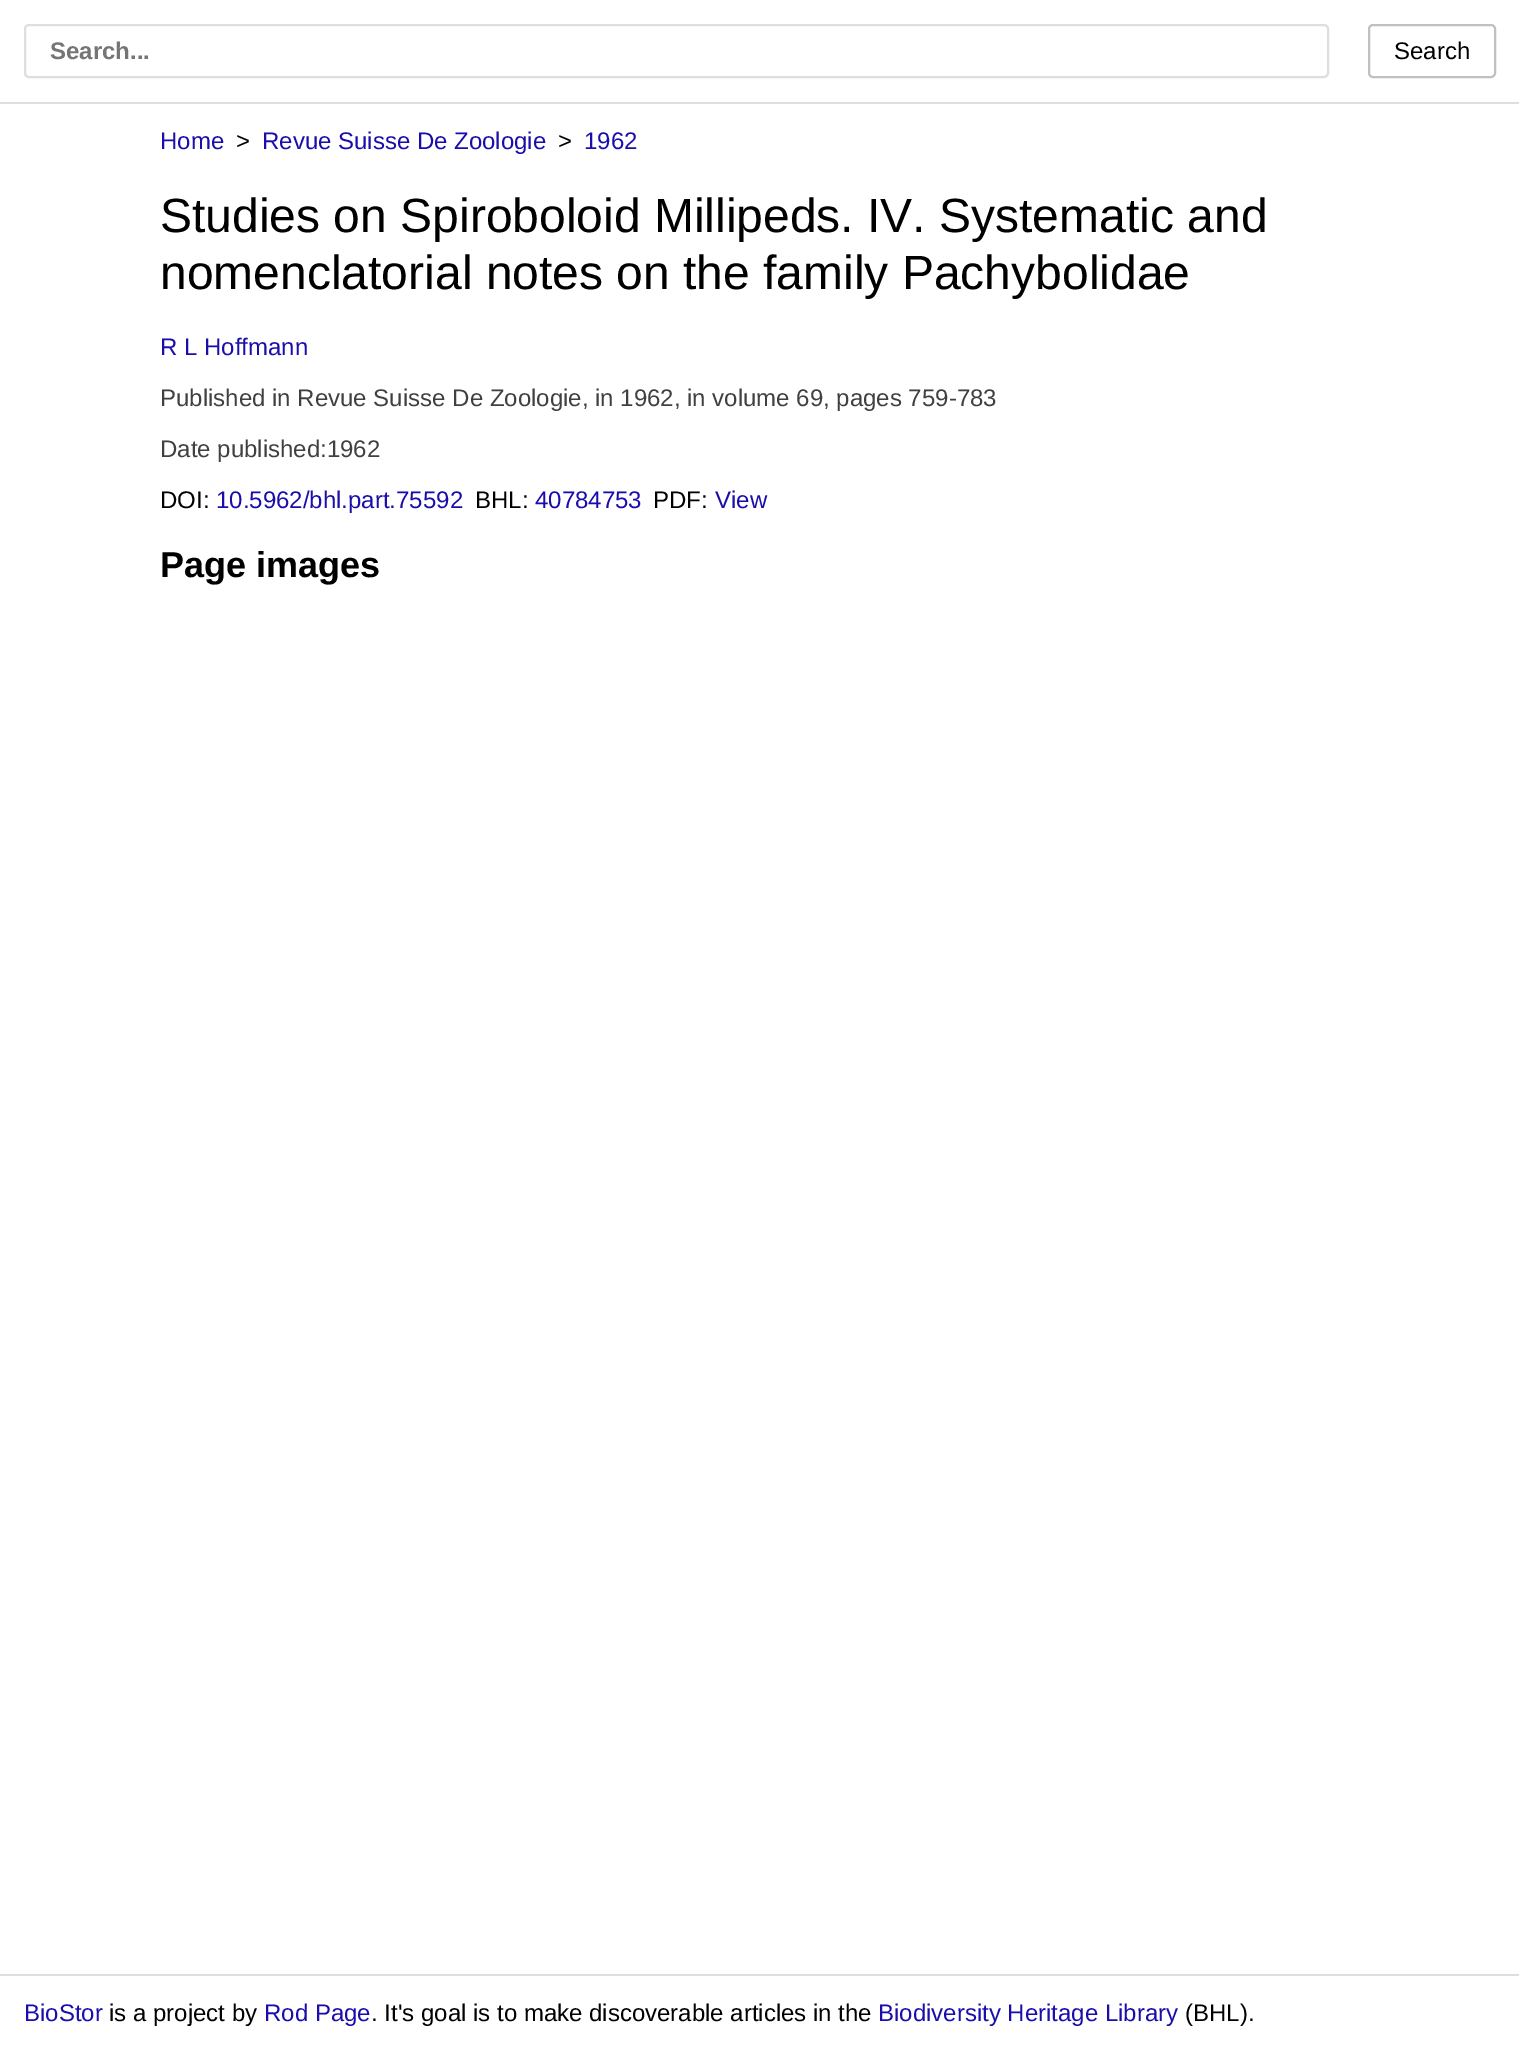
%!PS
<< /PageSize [1519 2050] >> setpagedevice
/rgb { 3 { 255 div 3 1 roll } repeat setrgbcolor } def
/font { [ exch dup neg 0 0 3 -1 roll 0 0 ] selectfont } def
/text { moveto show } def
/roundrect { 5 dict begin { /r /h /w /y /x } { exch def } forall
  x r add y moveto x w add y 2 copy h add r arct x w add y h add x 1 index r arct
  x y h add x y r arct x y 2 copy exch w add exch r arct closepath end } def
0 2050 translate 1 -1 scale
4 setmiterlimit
255 255 255 rgb
0 0 1519 2050 rectfill
222 222 222 rgb
0 102 1519 2 rectfill
2 setlinewidth
25 25 1303 52 4 roundrect stroke
192 192 192 rgb
1369 25 126 52 4 roundrect stroke
222 222 222 rgb
0 1974 1519 2 rectfill
/LiberationSans-Bold 24 font
117 117 117 rgb
(Search...) 50 59 text
/LiberationSans-Regular 24 font
0 0 0 rgb
(Search) 1394 59 text
26 13 171 rgb
(Home) 160 149 text
0 0 0 rgb
(>) 236 149 text
26 13 171 rgb
(Revue Suisse De Zoologie) 262 149 text
0 0 0 rgb
(>) 558 149 text
26 13 171 rgb
(1962) 584 149 text
/LiberationSans-Regular 48 font
0 0 0 rgb
(Studies on Spiroboloid Millipeds. IV. Systematic and) 160 232 text
(nomenclatorial notes on the family Pachybolidae) 160 289 text
/LiberationSans-Regular 24 font
26 13 171 rgb
(R L Hoffmann) 160 355 text
64 64 64 rgb
(Published in Revue Suisse De Zoologie, in 1962, in volume 69, pages 759-783) 160 406 text
(Date published:1962) 160 457 text
0 0 0 rgb
(DOI:) 160 508 text
26 13 171 rgb
(10.5962/bhl.part.75592) 216 508 text
0 0 0 rgb
(BHL:) 475 508 text
26 13 171 rgb
(40784753) 535 508 text
0 0 0 rgb
(PDF:) 653 508 text
26 13 171 rgb
(View) 715 508 text
/LiberationSans-Bold 36 font
0 0 0 rgb
(Page images) 160 577 text
/LiberationSans-Regular 24 font
26 13 171 rgb
(BioStor) 24 2021 text
0 0 0 rgb
(is a project by) 109 2021 text
26 13 171 rgb
(Rod Page) 264 2021 text
0 0 0 rgb
(. It's goal is to make discoverable articles in the) 371 2021 text
26 13 171 rgb
(Biodiversity Heritage Library) 878 2021 text
0 0 0 rgb
(\(BHL\).) 1185 2021 text
showpage
